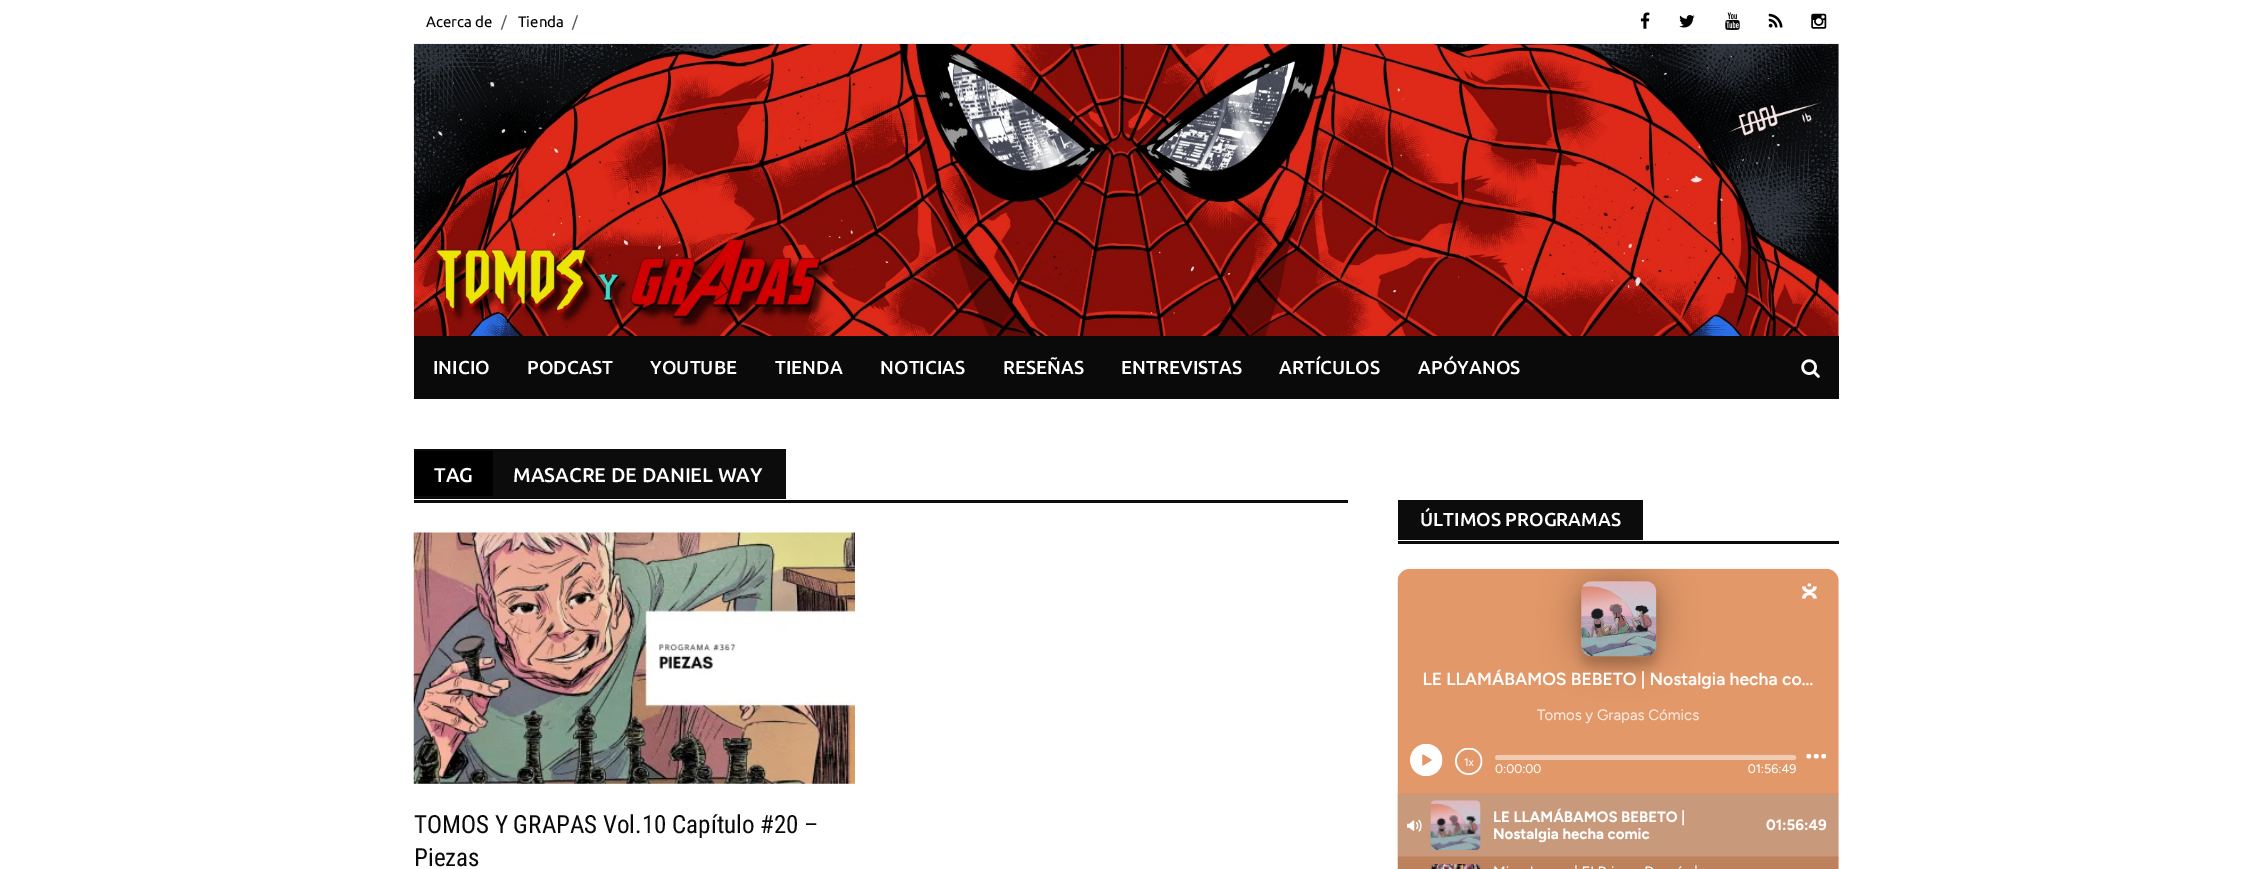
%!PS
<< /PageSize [2252 869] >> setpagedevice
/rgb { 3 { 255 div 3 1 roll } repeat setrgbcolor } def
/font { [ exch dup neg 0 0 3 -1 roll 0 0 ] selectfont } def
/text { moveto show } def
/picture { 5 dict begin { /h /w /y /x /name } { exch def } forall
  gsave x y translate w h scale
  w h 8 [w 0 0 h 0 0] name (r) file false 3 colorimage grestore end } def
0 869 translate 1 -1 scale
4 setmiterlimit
255 255 255 rgb
0 0 2252 869 rectfill
(img_01.rgb) 1640 12 10 17 picture
(img_02.rgb) 1679 15 16 13 picture
(img_03.rgb) 1725 12 15 18 picture
(img_04.rgb) 1768 13 15 15 picture
(img_05.rgb) 1811 13 16 16 picture
(img_06.rgb) 413 43 1426 293 picture
10 10 10 rgb
414 336 1425 63 rectfill
(img_07.rgb) 1801 359 19 19 picture
12 12 12 rgb
414 500 934 3 rectfill
414 449 372 50 rectfill
0 0 0 rgb
414 451 79 45 rectfill
(img_08.rgb) 413 532 442 252 picture
12 12 12 rgb
1398 541 441 3 rectfill
1398 500 245 40 rectfill
(img_09.rgb) 1397 568 442 301 picture
/Ubuntu-Regular 15 font
0 0 0 rgb
(Acerca de) 426 27 text
85 85 85 rgb
(/) 501 27 text
0 0 0 rgb
(Tienda) 518 27 text
85 85 85 rgb
(/) 572 27 text
/Ubuntu-Medium 18.75 font
255 255 255 rgb
(INICIO) 433 374 text
(PODCAST) 527 374 text
(YOUTUBE) 650 374 text
(TIENDA) 775 374 text
(NOTICIAS) 880 374 text
(RESEÑAS) 1003 374 text
(ENTREVISTAS) 1121 374 text
(ARTÍCULOS) 1279 374 text
(APÓYANOS) 1418 374 text
/Ubuntu-Medium 20 font
(TAG) 434 482 text
(MASACRE DE DANIEL WAY) 513 482 text
/RobotoCondensed-Regular 25 font
10 10 10 rgb
(TOMOS Y GRAPAS Vol.10 Capítulo #20 –) 414 833 text
(Piezas) 414 866 text
/Ubuntu-Medium 18.75 font
255 255 255 rgb
(ÚLTIMOS PROGRAMAS) 1420 526 text
showpage
